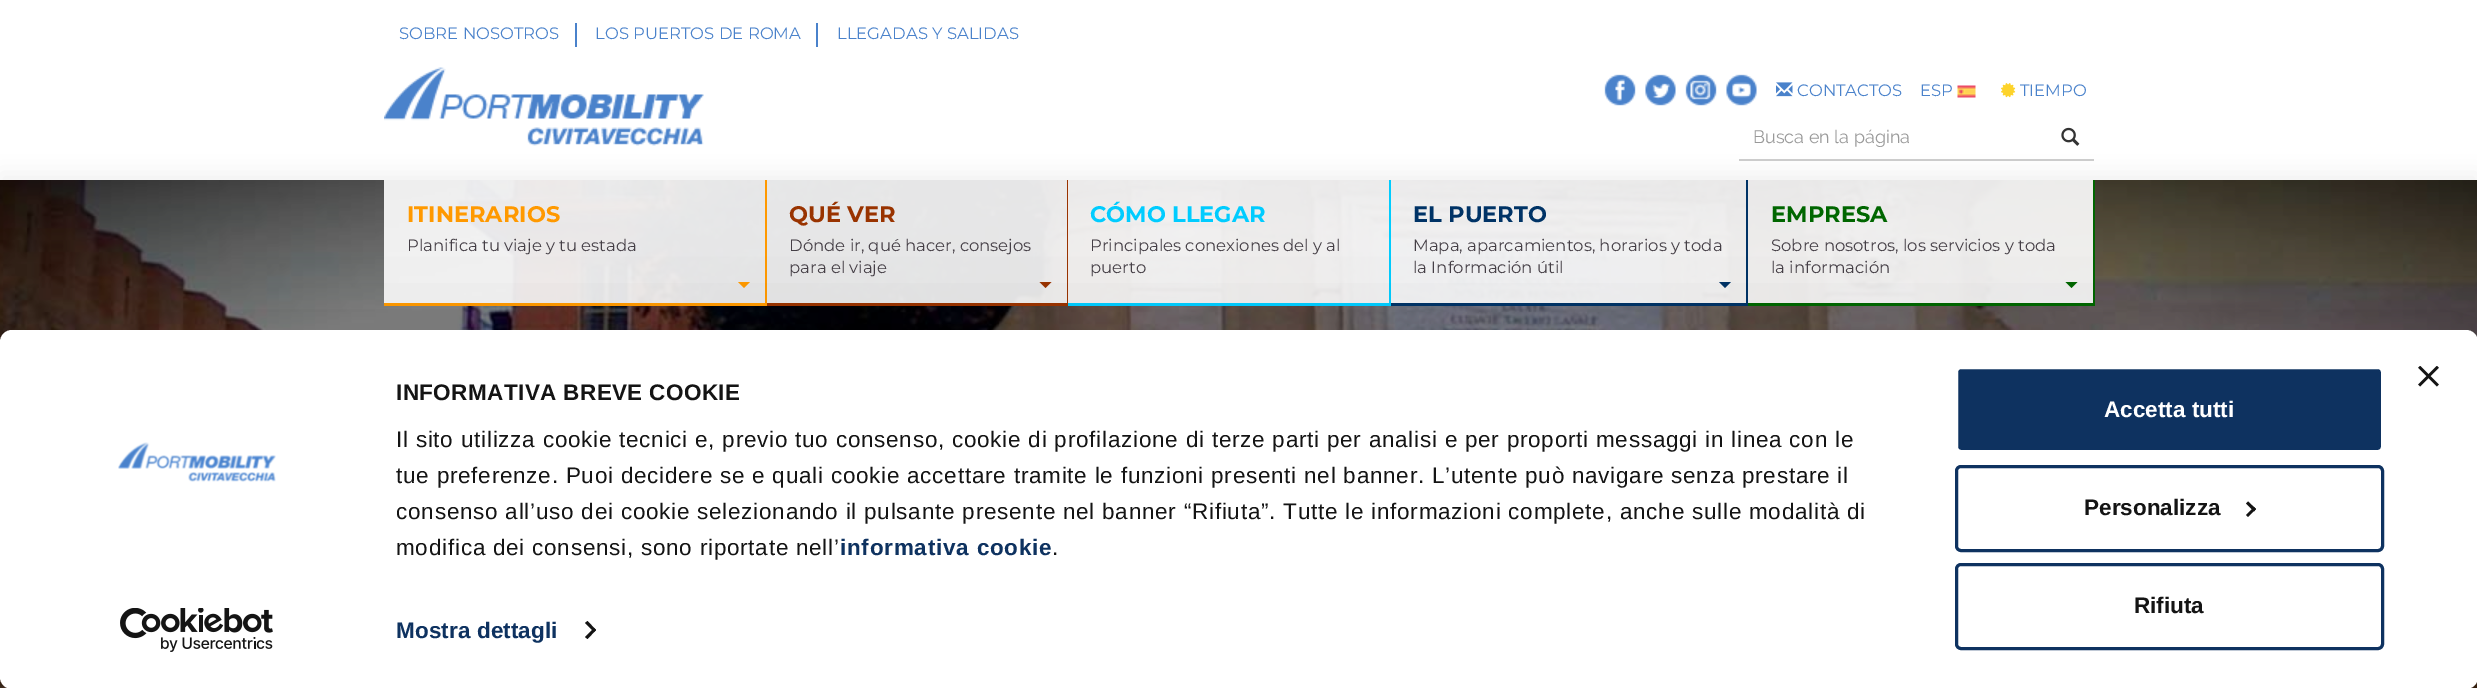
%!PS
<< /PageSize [2477 688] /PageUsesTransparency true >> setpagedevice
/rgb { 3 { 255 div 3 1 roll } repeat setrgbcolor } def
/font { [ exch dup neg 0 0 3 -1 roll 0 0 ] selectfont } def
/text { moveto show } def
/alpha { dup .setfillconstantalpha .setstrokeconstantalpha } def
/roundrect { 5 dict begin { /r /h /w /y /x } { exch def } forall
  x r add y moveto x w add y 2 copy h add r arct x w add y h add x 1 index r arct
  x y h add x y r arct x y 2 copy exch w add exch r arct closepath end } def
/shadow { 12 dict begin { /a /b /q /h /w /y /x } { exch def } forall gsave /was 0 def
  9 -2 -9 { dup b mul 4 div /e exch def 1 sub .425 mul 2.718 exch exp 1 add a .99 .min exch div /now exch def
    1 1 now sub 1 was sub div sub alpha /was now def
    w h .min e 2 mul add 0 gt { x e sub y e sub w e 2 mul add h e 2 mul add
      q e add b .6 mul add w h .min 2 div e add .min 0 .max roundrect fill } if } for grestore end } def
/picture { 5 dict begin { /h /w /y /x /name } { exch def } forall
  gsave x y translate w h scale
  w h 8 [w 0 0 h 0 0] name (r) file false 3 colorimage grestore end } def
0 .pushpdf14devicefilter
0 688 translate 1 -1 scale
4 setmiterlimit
255 255 255 rgb
0 0 2477 688 rectfill
74 130 203 rgb
575 23 2 24 rectfill
816 23 2 24 rectfill
0 0 0 rgb
0 173 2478 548 0 11 0.05 shadow
(img_01.rgb) 384 67 320 79 picture
(img_02.rgb) 1604 74 32 32 picture
(img_03.rgb) 1645 74 31 32 picture
(img_04.rgb) 1685 74 32 32 picture
(img_05.rgb) 1726 74 31 32 picture
(img_06.rgb) 1776 82 17 15 picture
(img_07.rgb) 1957 85 19 13 picture
(img_08.rgb) 2001 83 15 15 picture
204 204 204 rgb
1739 159 355 2 rectfill
(img_09.rgb) 2061 127 19 19 picture
(img_10.rgb) 0 180 2477 508 picture
0.9 alpha
255 255 255 rgb
384 180 381 123 rectfill
1 alpha
255 153 0 rgb
765 180 2 126 rectfill
384 303 383 3 rectfill
738 282 moveto 12 0 rlineto -6 6 rlineto closepath fill
0.9 alpha
255 255 255 rgb
767 180 300 123 rectfill
1 alpha
153 51 0 rgb
1067 180 2 126 rectfill
767 303 301 3 rectfill
1039.5 282 moveto 12 0 rlineto -6 6 rlineto closepath fill
0.9 alpha
255 255 255 rgb
1068 180 321 123 rectfill
1 alpha
0 204 255 rgb
1389 180 2 126 rectfill
1068 303 323 3 rectfill
0.9 alpha
255 255 255 rgb
1391 180 355 123 rectfill
1 alpha
0 51 102 rgb
1746 180 2 126 rectfill
1391 303 357 3 rectfill
1719 282 moveto 12 0 rlineto -6 6 rlineto closepath fill
0.9 alpha
255 255 255 rgb
1748 180 345 123 rectfill
1 alpha
0 102 0 rgb
2093 180 2 126 rectfill
1748 303 346 3 rectfill
2065.5 282 moveto 12 0 rlineto -6 6 rlineto closepath fill
0 0 0 rgb
0 375 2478 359 12 52.5 0.3 shadow
255 255 255 rgb
0 330 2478 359 12 roundrect fill
(img_11.rgb) 2418 366 21 21 picture
(img_12.rgb) 118 442 158 40 picture
(img_13.rgb) 120 608 153 44 picture
20 20 20 rgb
587.5 621 moveto 8.5 9 rlineto -2 2 rlineto -9 -9 rlineto closepath fill
594 628 moveto 2 2 rlineto -8.5 9 rlineto -2.5 -2 rlineto closepath fill
14 50 96 rgb
1956.5 367.5 426 84 4.5 roundrect gsave fill grestore
255 255 255 rgb
3 setlinewidth
stroke
14 50 96 rgb
1956.5 466.5 426 84 4.5 roundrect stroke
20 20 20 rgb
2248 501.5 moveto 8 7.5 rlineto -2 2.5 rlineto -8 -8 rlineto closepath fill
2254 507 moveto 2 2 rlineto -8 8 rlineto -2 -2 rlineto closepath fill
14 50 96 rgb
1956.5 564.5 426 84 4.5 roundrect stroke
/Montserrat-Regular 16.5 font
74 130 203 rgb
(SOBRE NOSOTROS) 399 39 text
(LOS PUERTOS DE ROMA) 595 39 text
(LLEGADAS Y SALIDAS) 837 39 text
(CONTACTOS) 1797 96 text
(ESP) 1920 96 text
(TIEMPO) 2020 96 text
/Raleway-Regular 18 font
153 153 153 rgb
(Busca en la página) 1753 143 text
/Montserrat-Bold 22.5 font
255 153 0 rgb
(ITINERARIOS) 407 222 text
/Montserrat-Regular 16.5 font
69 63 70 rgb
(Planifica tu viaje y tu estada) 407 251 text
/Montserrat-Bold 22.5 font
153 51 0 rgb
(QUÉ VER) 789 222 text
/Montserrat-Regular 16.5 font
69 63 70 rgb
(Dónde ir, qué hacer, consejos) 789 251 text
(para el viaje) 789 273 text
/Montserrat-Bold 22.5 font
0 204 255 rgb
(CÓMO LLEGAR) 1090 222 text
/Montserrat-Regular 16.5 font
69 63 70 rgb
(Principales conexiones del y al) 1090 251 text
(puerto) 1090 273 text
/Montserrat-Bold 22.5 font
0 51 102 rgb
(EL PUERTO) 1413 222 text
/Montserrat-Regular 16.5 font
69 63 70 rgb
(Mapa, aparcamientos, horarios y toda) 1413 251 text
(la Información útil) 1413 273 text
/Montserrat-Bold 22.5 font
0 102 0 rgb
(EMPRESA) 1771 222 text
/Montserrat-Regular 16.5 font
69 63 70 rgb
(Sobre nosotros, los servicios y toda) 1771 251 text
(la información) 1771 273 text
/LiberationSans-Bold 22.5 font
20 20 20 rgb
396 400 moveto 0.4 0 (INFORMATIVA BREVE COOKIE) ashow
/LiberationSans-Regular 22.5 font
396 447 moveto 0.75 0 (Il sito utilizza cookie tecnici e, previo tuo consenso, cookie di profilazione di terze parti per analisi e per proporti messaggi in linea con le) ashow
396 483 moveto 0.75 0 (tue preferenze. Puoi decidere se e quali cookie accettare tramite le funzioni presenti nel banner. L’utente può navigare senza prestare il) ashow
396 519 moveto 0.75 0 (consenso all’uso dei cookie selezionando il pulsante presente nel banner “Rifiuta”. Tutte le informazioni complete, anche sulle modalità di) ashow
396 555 moveto 0.75 0 (modifica dei consensi, sono riportate nell’) ashow
/LiberationSans-Bold 22.5 font
14 50 96 rgb
840 555 moveto 0.75 0 (informativa cookie) ashow
/LiberationSans-Regular 22.5 font
20 20 20 rgb
1052 555 moveto 0.75 0 (.) ashow
/LiberationSans-Bold 22.5 font
14 50 96 rgb
396 638 moveto 0.1 0 (Mostra dettagli) ashow
255 255 255 rgb
(Accetta tutti) 2104 417 text
20 20 20 rgb
(Personalizza) 2084 515 text
(Rifiuta) 2134 613 text
.poppdf14devicefilter showpage
